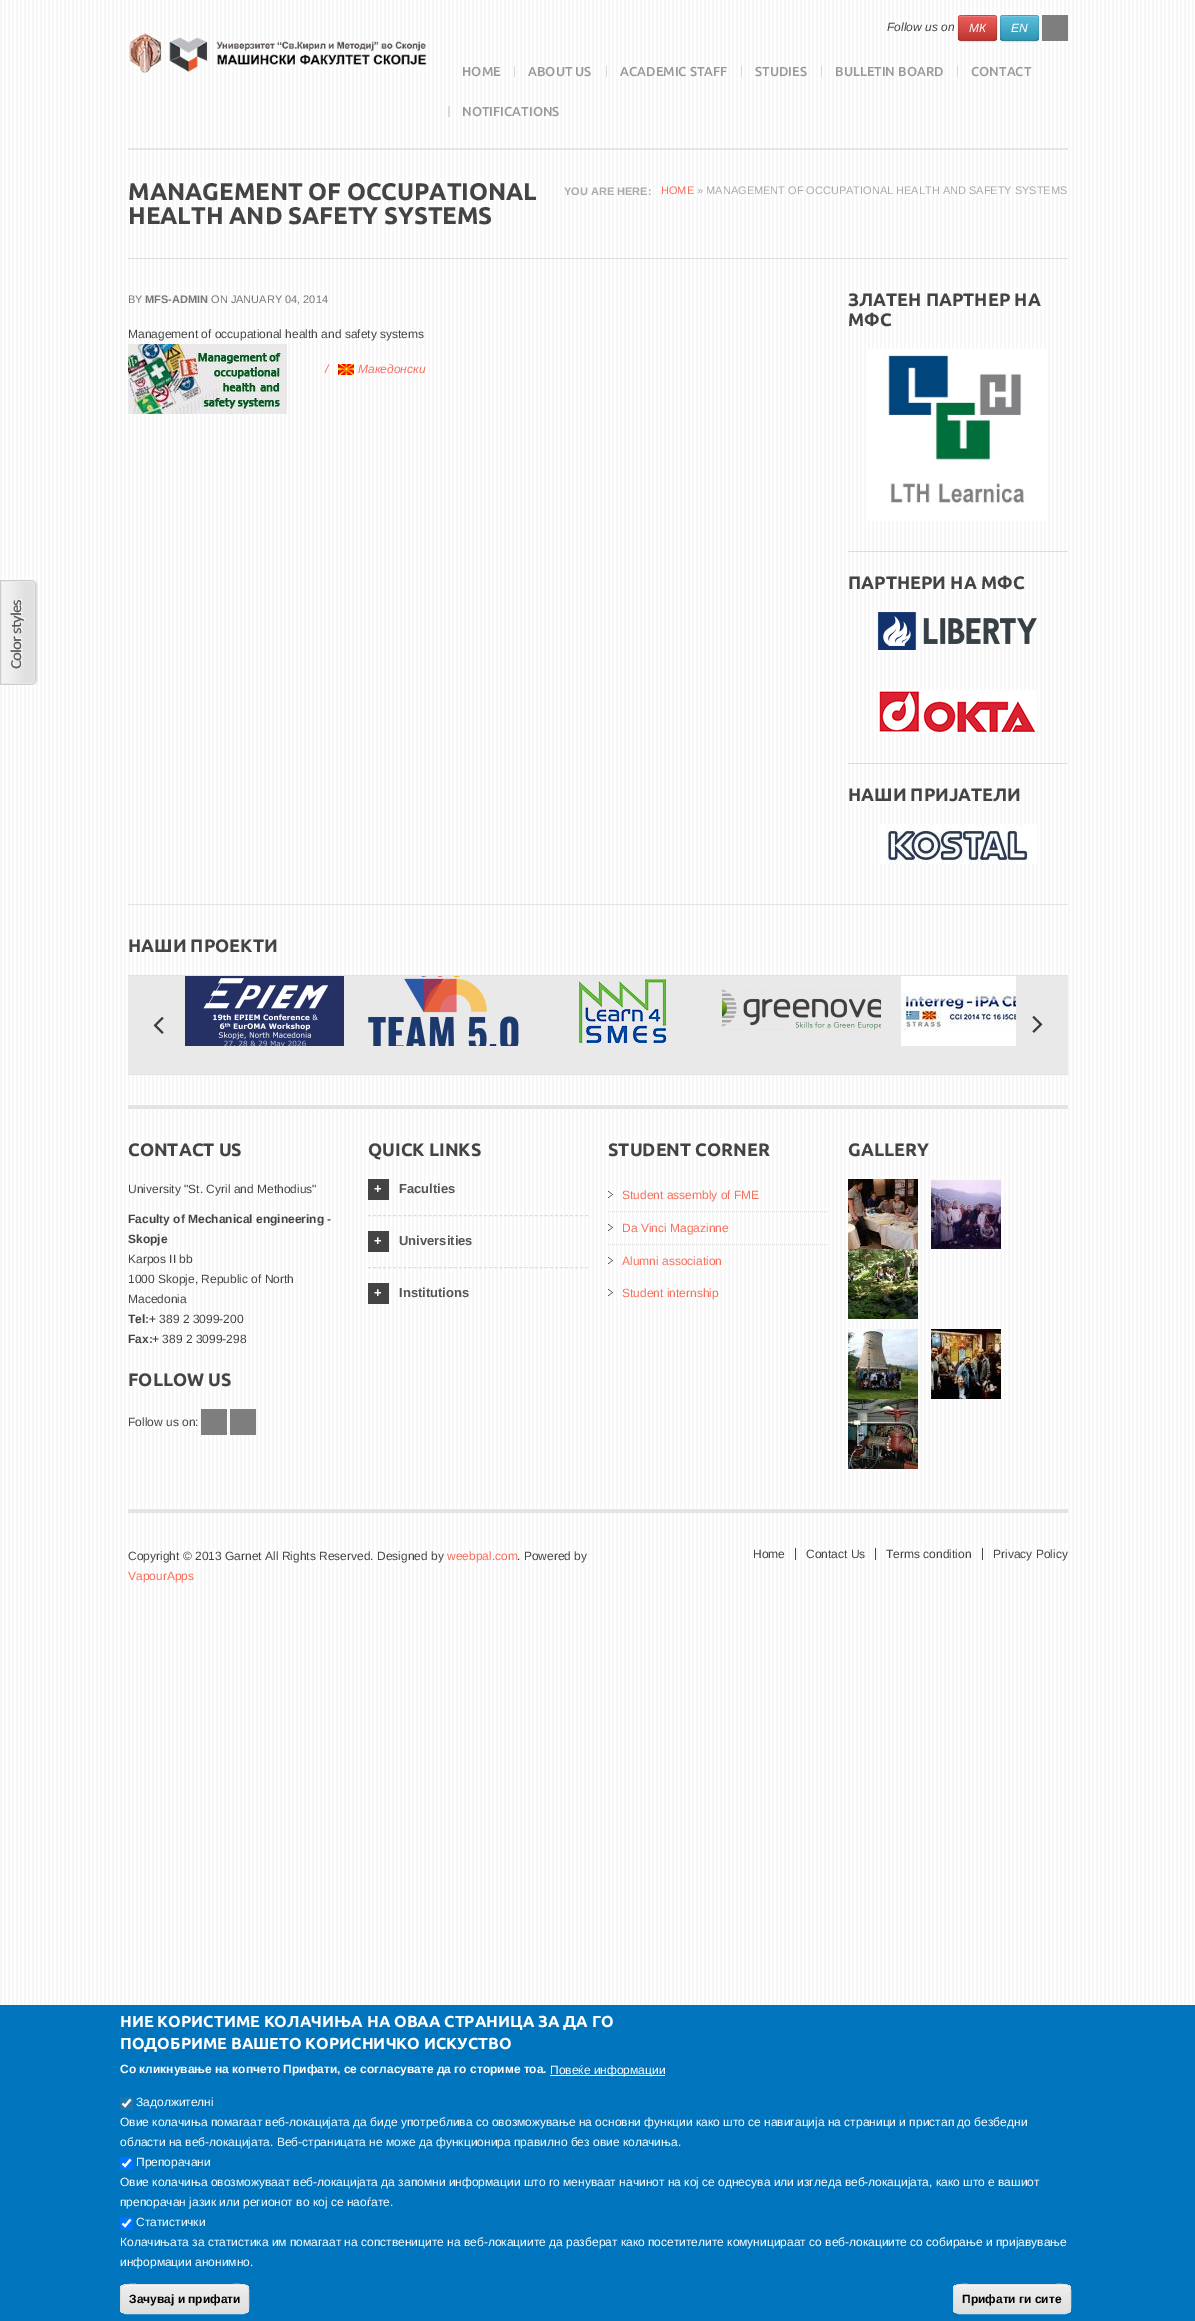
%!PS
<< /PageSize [1195 2321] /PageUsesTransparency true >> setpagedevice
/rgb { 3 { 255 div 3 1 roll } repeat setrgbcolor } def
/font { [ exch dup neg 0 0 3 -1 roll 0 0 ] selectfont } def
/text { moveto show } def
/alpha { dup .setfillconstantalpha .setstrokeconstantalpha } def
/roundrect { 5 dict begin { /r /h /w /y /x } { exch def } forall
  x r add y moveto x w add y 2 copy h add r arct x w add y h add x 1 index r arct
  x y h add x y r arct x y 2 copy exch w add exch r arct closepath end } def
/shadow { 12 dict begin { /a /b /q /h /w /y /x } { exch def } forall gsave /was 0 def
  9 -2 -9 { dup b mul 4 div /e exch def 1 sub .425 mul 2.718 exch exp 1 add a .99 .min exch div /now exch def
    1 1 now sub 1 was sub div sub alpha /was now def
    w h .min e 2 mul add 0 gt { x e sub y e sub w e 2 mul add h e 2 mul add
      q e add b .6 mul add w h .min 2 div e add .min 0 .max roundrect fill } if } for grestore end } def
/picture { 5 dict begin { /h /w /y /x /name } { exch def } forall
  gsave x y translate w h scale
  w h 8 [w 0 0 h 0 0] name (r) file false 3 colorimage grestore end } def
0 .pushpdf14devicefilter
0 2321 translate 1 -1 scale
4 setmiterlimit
255 255 255 rgb
0 0 1195 2321 rectfill
(img_01.rgb) 0 0 1194 2005 picture
226 229 232 rgb
128 148 940 2 rectfill
(img_02.rgb) 129 33 298 40 picture
0 0 0 rgb
958 16 39 26 3 1 0.05 shadow
218 79 73 rgb
958 15 39 26 3 roundrect fill
gsave
958 15 39 26 3 roundrect clip newpath
gsave 958 16 moveto 39 0 rlineto 0 24 rlineto -39 0 rlineto closepath clip newpath
<< /ShadingType 2 /ColorSpace /DeviceRGB /Coords [978 16 978 40] /Extend [true true] /Function << /FunctionType 2 /Domain [0 1] /C0 [0.933 0.373 0.357] /C1 [0.741 0.212 0.184] /N 1 >> >> shfill grestore
grestore
241 126 123 rgb
961 17 moveto 33 0 rlineto 1 0 2 1 2 2 rcurveto 0 -4.5 -3.5 -3 -7.5 -3 rcurveto -22 0 rlineto -4 0 -7.5 -1.5 -7.5 3 rcurveto 0 -1 1 -2 2 -2 rcurveto closepath fill
0.25 alpha
0 0 0 rgb
996 40 moveto -0.5 0 -1.5 0.5 -2 0.5 rcurveto -33 0 rlineto -0.5 0 -1.5 -0.5 -2 -0.5 rcurveto stroke
0.1 alpha
959 40 moveto 0 -0.5 -0.5 -1.5 -0.5 -2 rcurveto 0 -20 rlineto 0 -0.5 0.5 -1.5 0.5 -2 rcurveto 0.5 0 1.5 -0.5 2 -0.5 rcurveto 33 0 rlineto 0.5 0 1.5 0.5 2 0.5 rcurveto 0 0.5 0.5 1.5 0.5 2 rcurveto 0 20 rlineto 0 0.5 -0.5 1.5 -0.5 2 rcurveto stroke
1 alpha
1000 16 39 26 3 1 0.05 shadow
73 175 205 rgb
1000 15 39 26 3 roundrect fill
gsave
1000 15 39 26 3 roundrect clip newpath
gsave 1000 16 moveto 39 0 rlineto 0 24 rlineto -39 0 rlineto closepath clip newpath
<< /ShadingType 2 /ColorSpace /DeviceRGB /Coords [1020 16 1020 40] /Extend [true true] /Function << /FunctionType 2 /Domain [0 1] /C0 [0.357 0.753 0.871] /C1 [0.184 0.588 0.706] /N 1 >> >> shfill grestore
grestore
123 204 228 rgb
1003 17 moveto 33 0 rlineto 1 0 2 1 2 2 rcurveto 0 -4.5 -3.5 -3 -7.5 -3 rcurveto -22 0 rlineto -4 0 -7.5 -1.5 -7.5 3 rcurveto 0 -1 1 -2 2 -2 rcurveto closepath fill
0.25 alpha
0 0 0 rgb
1038 40 moveto -0.5 0 -1.5 0.5 -2 0.5 rcurveto -33 0 rlineto -0.5 0 -1.5 -0.5 -2 -0.5 rcurveto stroke
0.1 alpha
1001 40 moveto 0 -0.5 -0.5 -1.5 -0.5 -2 rcurveto 0 -20 rlineto 0 -0.5 0.5 -1.5 0.5 -2 rcurveto 0.5 0 1.5 -0.5 2 -0.5 rcurveto 33 0 rlineto 0.5 0 1.5 0.5 2 0.5 rcurveto 0 0.5 0.5 1.5 0.5 2 rcurveto 0 20 rlineto 0 0.5 -0.5 1.5 -0.5 2 rcurveto stroke
1 alpha
126 126 126 rgb
1042 15 26 26 rectfill
217 217 217 rgb
514 66 1 11 rectfill
606 66 1 11 rectfill
741 66 1 11 rectfill
821 66 1 11 rectfill
957 66 1 11 rectfill
448 106 2 11 rectfill
221 221 221 rgb
128 258 940 1 rectfill
(img_03.rgb) 1 580 37 105 picture
205 204 204 rgb
0 580 1 105 rectfill
226 229 232 rgb
128 904 940 1 rectfill
(img_04.rgb) 128 344 159 70 picture
(img_05.rgb) 338 364 16 11 picture
(img_06.rgb) 868 349 178 172 picture
221 221 221 rgb
848 551 220 1 rectfill
(img_07.rgb) 878 612 159 38 picture
(img_08.rgb) 879 690 158 43 picture
848 763 220 1 rectfill
(img_09.rgb) 878 824 159 40 picture
226 229 232 rgb
128 1105 940 4 rectfill
233 233 233 rgb
128 976 940 98 rectfill
227 225 225 rgb
128 975 940 1 rectfill
128 1074 940 1 rectfill
(img_10.rgb) 153 1017 11 17 picture
(img_11.rgb) 185 976 159 70 picture
(img_12.rgb) 368 976 151 70 picture
(img_13.rgb) 578 979 89 64 picture
(img_14.rgb) 722 989 159 41 picture
(img_15.rgb) 901 976 115 70 picture
(img_16.rgb) 1032 1016 11 17 picture
226 229 232 rgb
128 1509 940 4 rectfill
126 126 126 rgb
201 1409 26 26 rectfill
230 1409 26 26 rectfill
68 68 68 rgb
368 1179 21 21 rectfill
221 221 221 rgb
[3 2.05] 0 setdash
368 1215.5 moveto 220 0 rlineto stroke
68 68 68 rgb
368 1231 21 21 rectfill
221 221 221 rgb
368 1267.5 moveto 220 0 rlineto stroke
68 68 68 rgb
368 1283 21 21 rectfill
(img_17.rgb) 608 1191 5 7 picture
(img_17.rgb) 608 1224 5 7 picture
221 221 221 rgb
[1 1] 0 setdash
608 1211.5 moveto 220 0 rlineto stroke
(img_17.rgb) 608 1257 5 7 picture
608 1244.5 moveto 220 0 rlineto stroke
(img_17.rgb) 608 1289 5 7 picture
(img_18.rgb) 848 1179 70 70 picture
(img_19.rgb) 931 1179 70 70 picture
(img_20.rgb) 848 1249 70 70 picture
(img_21.rgb) 848 1329 70 70 picture
(img_22.rgb) 931 1329 70 70 picture
(img_23.rgb) 848 1399 70 70 picture
68 68 68 rgb
795 1548 1 12 rectfill
875 1548 1 12 rectfill
982 1548 1 12 rectfill
0 116 189 rgb
0 2005 1195 316 rectfill
255 255 255 rgb
550 2075 115 1 rectfill
35 117 168 rgb
120 2097 13 13 2 roundrect fill
255 255 255 rgb
2.1 setlinewidth
[] 0 setdash
122.5 2103.5 moveto 2.5 2.5 rlineto 5.5 -6.5 rlineto stroke
0 117 255 rgb
120 2157 13 13 2 roundrect fill
255 255 255 rgb
122.5 2163.5 moveto 2.5 2.5 rlineto 5.5 -6.5 rlineto stroke
0 117 255 rgb
120 2217 13 13 2 roundrect fill
255 255 255 rgb
122.5 2223.5 moveto 2.5 2.5 rlineto 5.5 -6.5 rlineto stroke
gsave
120 2284 129 30 6 roundrect clip newpath
gsave 120 2285 moveto 129 0 rlineto 0 28 rlineto -129 0 rlineto closepath clip newpath
<< /ShadingType 2 /ColorSpace /DeviceRGB /Coords [185 2285 185 2313] /Extend [true true] /Function << /FunctionType 3 /Domain [0 1] /Functions [<< /FunctionType 2 /Domain [0 1] /C0 [0.929 0.929 0.929] /C1 [0.929 0.929 0.929] /N 1 >> << /FunctionType 2 /Domain [0 1] /C0 [0.929 0.929 0.929] /C1 [0.875 0.875 0.875] /N 1 >>] /Bounds [0.05] /Encode [0 1 0 1] >> >> shfill grestore
grestore
126 2286 moveto 117 0 rlineto 3 0 5 2 5 5 rcurveto 0 -11 -20 -6 -24 -6 rcurveto -78 0 rlineto -5 0 -25 -5 -25 6 rcurveto 0 -3 2 -5 5 -5 rcurveto closepath fill
220 220 220 rgb
1 setlinewidth
120.5 2284.5 128 29 5.5 roundrect stroke
gsave
953 2284 118 30 6 roundrect clip newpath
gsave 953 2285 moveto 118 0 rlineto 0 28 rlineto -118 0 rlineto closepath clip newpath
<< /ShadingType 2 /ColorSpace /DeviceRGB /Coords [1012 2285 1012 2313] /Extend [true true] /Function << /FunctionType 3 /Domain [0 1] /Functions [<< /FunctionType 2 /Domain [0 1] /C0 [0.929 0.929 0.929] /C1 [0.929 0.929 0.929] /N 1 >> << /FunctionType 2 /Domain [0 1] /C0 [0.929 0.929 0.929] /C1 [0.875 0.875 0.875] /N 1 >>] /Bounds [0.05] /Encode [0 1 0 1] >> >> shfill grestore
grestore
255 255 255 rgb
959 2286 moveto 106 0 rlineto 3 0 5 2 5 5 rcurveto 0 -11 -18 -6 -23 -6 rcurveto -70 0 rlineto -5 0 -23 -5 -23 6 rcurveto 0 -3 2 -5 5 -5 rcurveto closepath fill
220 220 220 rgb
953.5 2284.5 117 29 5.5 roundrect stroke
/LiberationSans-Italic 12 font
68 68 68 rgb
(Follow us on) 887 31 text
255 255 255 rgb
(МК) 969 32 text
(EN) 1011 32 text
/Ubuntu-Medium 13 font
153 153 153 rgb
(HOME) 462 76 text
(ABOUT US) 528 76 text
(ACADEMIC STAFF) 620 76 text
(STUDIES) 755 76 text
(BULLETIN BOARD) 835 76 text
(CONTACT) 971 76 text
(NOTIFICATIONS) 462 116 text
/Ubuntu-Bold 24 font
68 68 68 rgb
(MANAGEMENT OF OCCUPATIONAL) 128 200 text
(HEALTH AND SAFETY SYSTEMS) 128 224 text
/LiberationSans-Bold 11 font
170 170 170 rgb
(YOU ARE HERE:) 564 195 text
/LiberationSans-Regular 11 font
249 110 91 rgb
(HOME) 661 194 text
170 170 170 rgb
(» MANAGEMENT OF OCCUPATIONAL HEALTH AND SAFETY SYSTEMS) 697 194 text
119 119 119 rgb
(BY) 128 303 text
/LiberationSans-Bold 11 font
(MFS-ADMIN) 145 303 text
/LiberationSans-Regular 11 font
(ON JANUARY 04, 2014) 211 303 text
/LiberationSans-Regular 12 font
68 68 68 rgb
(Management of occupational health and safety systems) 128 338 text
/LiberationSans-Italic 12 font
249 110 91 rgb
(/) 325 373 text
(Македонски) 358 373 text
/Ubuntu-Bold 18 font
68 68 68 rgb
(ЗЛАТЕН ПАРТНЕР НА) 848 306 text
(МФС) 848 326 text
(ПАРТНЕРИ НА МФС) 848 589 text
(НАШИ ПРИЈАТЕЛИ) 848 801 text
(НАШИ ПРОЕКТИ) 128 952 text
(CONTACT US) 128 1156 text
/LiberationSans-Regular 12 font
(University "St. Cyril and Methodius") 128 1193 text
/LiberationSans-Bold 12 font
(Faculty of Mechanical engineering -) 128 1223 text
(Skopje) 128 1243 text
/LiberationSans-Regular 12 font
(Karpos II bb) 128 1263 text
(1000 Skopje, Republic of North) 128 1283 text
(Macedonia) 128 1303 text
/LiberationSans-Bold 12 font
(Tel:) 128 1323 text
/LiberationSans-Regular 12 font
(+ 389 2 3099-200) 149 1323 text
/LiberationSans-Bold 12 font
(Fax:) 128 1343 text
/LiberationSans-Regular 12 font
(+ 389 2 3099-298) 152 1343 text
/Ubuntu-Bold 18 font
(FOLLOW US) 128 1386 text
/LiberationSans-Regular 12 font
(Follow us on:) 128 1426 text
/Ubuntu-Bold 18 font
(QUICK LINKS) 368 1156 text
/LiberationSans-Bold 13 font
255 255 255 rgb
(+) 374 1193 text
85 85 85 rgb
(Faculties) 399 1193 text
255 255 255 rgb
(+) 374 1245 text
85 85 85 rgb
(Universities) 399 1245 text
255 255 255 rgb
(+) 374 1297 text
85 85 85 rgb
(Institutions) 399 1297 text
/Ubuntu-Bold 18 font
68 68 68 rgb
(STUDENT CORNER) 608 1156 text
/LiberationSans-Regular 12 font
249 110 91 rgb
(Student assembly of FME) 622 1199 text
(Da Vinci Magazinne) 622 1232 text
(Alumni association) 622 1265 text
(Student internship) 622 1297 text
/Ubuntu-Bold 18 font
68 68 68 rgb
(GALLERY) 848 1156 text
/LiberationSans-Regular 12 font
(Copyright © 2013 Garnet All Rights Reserved. Designed by) 128 1560 text
249 110 91 rgb
(weebpal.com) 447 1560 text
68 68 68 rgb
(. Powered by) 517 1560 text
249 110 91 rgb
(VapourApps) 128 1580 text
68 68 68 rgb
(Home) 753 1558 text
(Contact Us) 806 1558 text
(Terms condition) 886 1558 text
(Privacy Policy) 993 1558 text
/Ubuntu-Bold 16 font
255 255 255 rgb
(НИЕ КОРИСТИМЕ КОЛАЧИЊА НА ОВАА СТРАНИЦА ЗА ДА ГО) 120 2027 text
(ПОДОБРИМЕ ВАШЕТО КОРИСНИЧКО ИСКУСТВО) 120 2049 text
/LiberationSans-Bold 12 font
(Со кликнување на копчето Прифати, се согласувате да го сториме тоа.) 120 2073 text
/LiberationSans-Regular 12 font
(Повеќе информации) 550 2074 text
(Задолжителнi) 136 2106 text
(Овие колачиња помагаат веб-локацијата да биде употреблива со овозможување на основни функции како што се навигација на страници и пристап до безбедни) 120 2126 text
(области на веб-локацијата. Веб-страницата не може да функционира правилно без овие колачиња.) 120 2146 text
(Препорачани) 136 2166 text
(Овие колачиња овозможуваат веб-локацијата да запомни информации што го менуваат начинот на кој се однесува или изгледа веб-локацијата, како што е вашиот) 120 2186 text
(препорачан јазик или регионот во кој се наоѓате.) 120 2206 text
(Статистички) 136 2226 text
(Колачињата за статистика им помагаат на сопствениците на веб-локациите да разберат како посетителите комуницираат со веб-локациите со собирање и пријавување) 120 2246 text
(информации анонимно.) 120 2266 text
/LiberationSans-Bold 12 font
0 0 0 rgb
(Зачувај и прифати) 129 2303 text
(Прифати ги сите) 962 2303 text
.poppdf14devicefilter showpage
